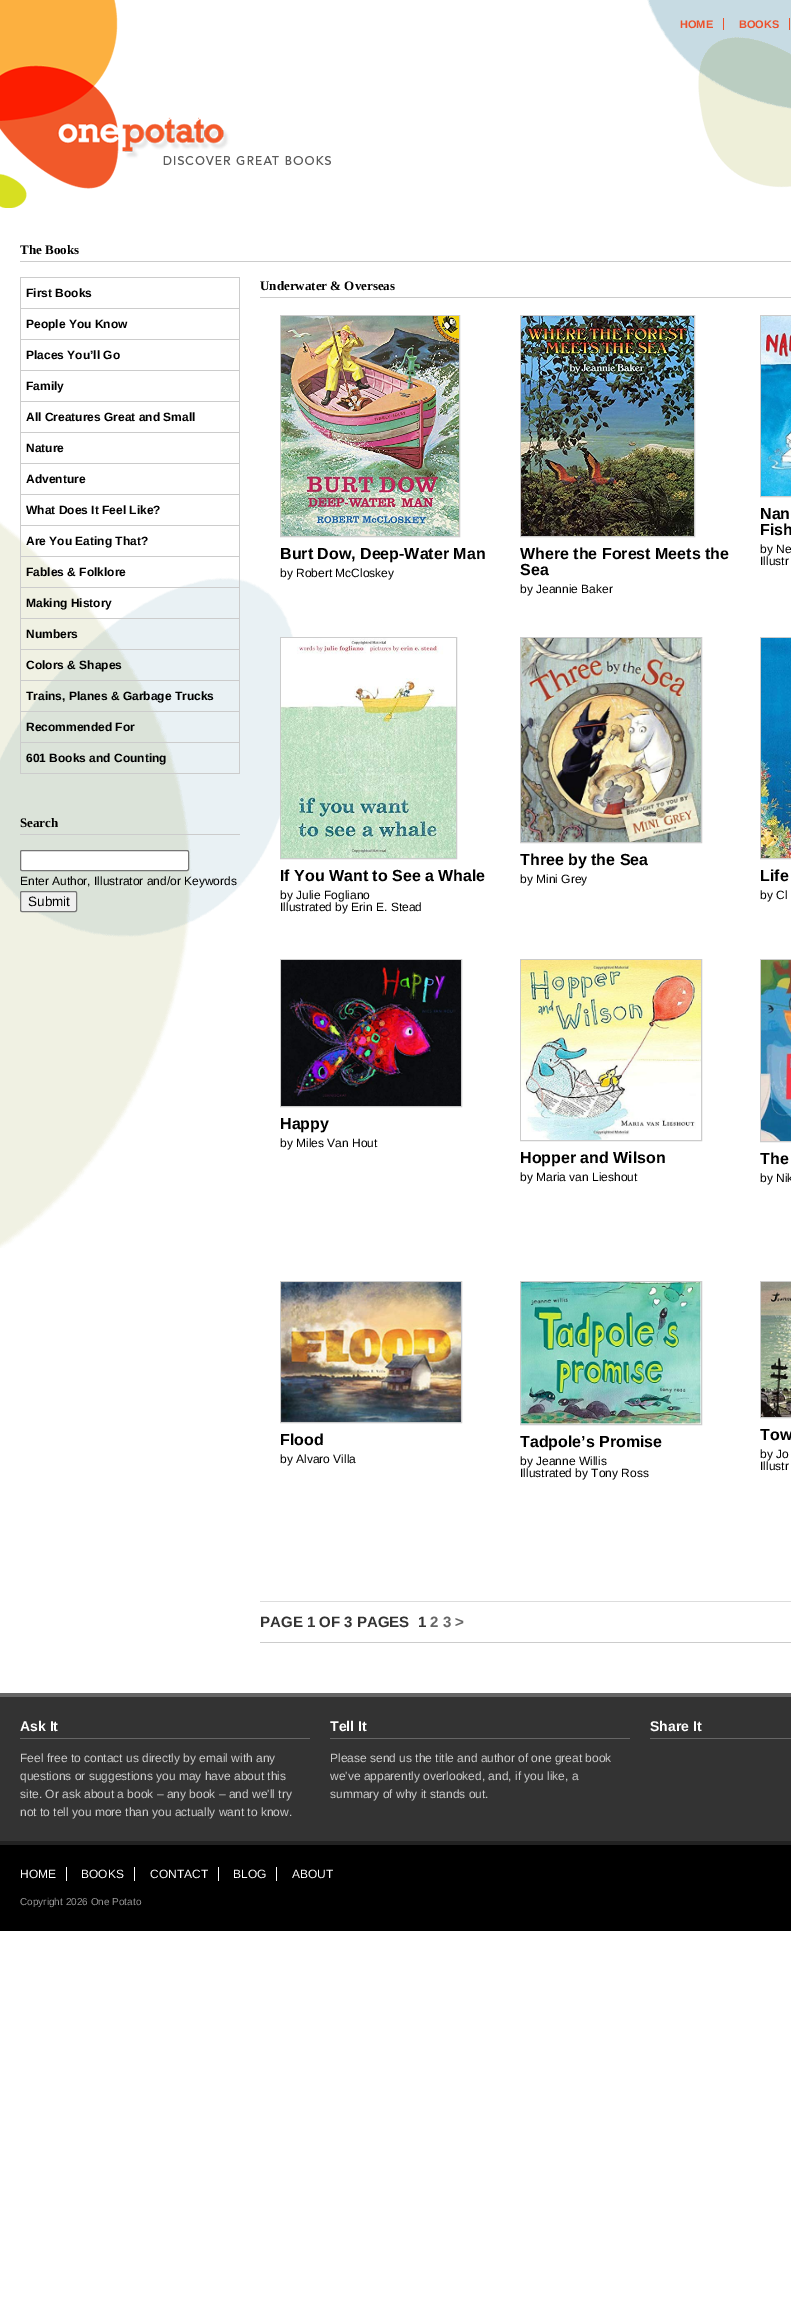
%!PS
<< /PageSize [791 2314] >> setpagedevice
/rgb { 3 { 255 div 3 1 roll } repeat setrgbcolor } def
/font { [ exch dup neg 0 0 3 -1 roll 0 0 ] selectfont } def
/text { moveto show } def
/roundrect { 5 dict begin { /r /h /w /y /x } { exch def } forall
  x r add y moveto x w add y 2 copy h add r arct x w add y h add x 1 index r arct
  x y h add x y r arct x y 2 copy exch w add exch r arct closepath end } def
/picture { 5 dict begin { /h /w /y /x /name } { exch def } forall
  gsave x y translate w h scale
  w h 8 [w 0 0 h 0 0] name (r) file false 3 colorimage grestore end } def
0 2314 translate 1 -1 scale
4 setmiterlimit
255 255 255 rgb
0 0 791 2314 rectfill
(img_01.rgb) 0 0 791 1248 picture
(img_02.rgb) 0 0 331 208 picture
237 81 43 rgb
723 18 1 12 rectfill
789 18 1 12 rectfill
204 204 204 rgb
20 261 771 1 rectfill
20 773 220 1 rectfill
20 277 220 1 rectfill
239 277 1 31 rectfill
20 277 1 31 rectfill
20 308 220 1 rectfill
239 308 1 31 rectfill
20 308 1 31 rectfill
20 339 220 1 rectfill
239 339 1 31 rectfill
20 339 1 31 rectfill
20 370 220 1 rectfill
239 370 1 31 rectfill
20 370 1 31 rectfill
20 401 220 1 rectfill
239 401 1 31 rectfill
20 401 1 31 rectfill
20 432 220 1 rectfill
239 432 1 31 rectfill
20 432 1 31 rectfill
20 463 220 1 rectfill
239 463 1 31 rectfill
20 463 1 31 rectfill
20 494 220 1 rectfill
239 494 1 31 rectfill
20 494 1 31 rectfill
20 525 220 1 rectfill
239 525 1 31 rectfill
20 525 1 31 rectfill
20 556 220 1 rectfill
239 556 1 31 rectfill
20 556 1 31 rectfill
20 587 220 1 rectfill
239 587 1 31 rectfill
20 587 1 31 rectfill
20 618 220 1 rectfill
239 618 1 31 rectfill
20 618 1 31 rectfill
20 649 220 1 rectfill
239 649 1 31 rectfill
20 649 1 31 rectfill
20 680 220 1 rectfill
239 680 1 31 rectfill
20 680 1 31 rectfill
20 711 220 1 rectfill
239 711 1 31 rectfill
20 711 1 31 rectfill
20 742 220 1 rectfill
239 742 1 31 rectfill
20 742 1 31 rectfill
20 834 220 1 rectfill
255 255 255 rgb
20.5 850.5 168 20 1.5 roundrect gsave fill grestore
118 118 118 rgb
stroke
239 239 239 rgb
20.5 891.5 56 20 1.5 roundrect gsave fill grestore
118 118 118 rgb
stroke
204 204 204 rgb
260 297 531 1 rectfill
760.5 315.5 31 181 rectstroke
(img_03.rgb) 761 316 30 180 picture
280.5 315.5 179 221 rectstroke
(img_04.rgb) 281 316 178 220 picture
520.5 315.5 174 221 rectstroke
(img_05.rgb) 521 316 173 220 picture
280.5 637.5 176 221 rectstroke
(img_06.rgb) 281 638 175 220 picture
520.5 637.5 181 205 rectstroke
(img_07.rgb) 521 638 180 204 picture
760.5 637.5 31 221 rectstroke
(img_08.rgb) 761 638 30 220 picture
280.5 959.5 181 147 rectstroke
(img_09.rgb) 281 960 180 146 picture
520.5 959.5 181 181 rectstroke
(img_10.rgb) 521 960 180 180 picture
760.5 959.5 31 182 rectstroke
(img_11.rgb) 761 960 30 181 picture
280.5 1281.5 181 141 rectstroke
(img_12.rgb) 281 1282 180 140 picture
520.5 1281.5 181 143 rectstroke
(img_13.rgb) 521 1282 180 142 picture
760.5 1281.5 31 136 rectstroke
(img_14.rgb) 761 1282 30 135 picture
221 221 221 rgb
260 1601 531 1 rectfill
204 204 204 rgb
260 1642 531 1 rectfill
51 51 51 rgb
0 1697 791 144 rectfill
102 102 102 rgb
0 1693 791 4 rectfill
20 1738 290 1 rectfill
330 1738 300 1 rectfill
650 1738 141 1 rectfill
0 0 0 rgb
0 1845 791 86 rectfill
34 34 34 rgb
0 1841 791 4 rectfill
255 255 255 rgb
66 1867 1 14 rectfill
134 1867 1 14 rectfill
218 1867 1 14 rectfill
276 1867 1 14 rectfill
/LiberationSans-Bold 11 font
237 81 43 rgb
(HOME) 680 28 text
(BOOKS) 739 28 text
/LiberationSerif-Bold 13 font
0 0 0 rgb
(The Books) 20 254 text
/LiberationSans-Bold 12 font
(First Books) 26 297 text
(People You Know) 26 328 text
(Places You’ll Go) 26 359 text
(Family) 26 390 text
(All Creatures Great and Small) 26 421 text
(Nature) 26 452 text
(Adventure) 26 483 text
(What Does It Feel Like?) 26 514 text
(Are You Eating That?) 26 545 text
(Fables & Folklore) 26 576 text
(Making History) 26 607 text
(Numbers) 26 638 text
(Colors & Shapes) 26 669 text
(Trains, Planes & Garbage Trucks) 26 700 text
(Recommended For) 26 731 text
(601 Books and Counting) 26 762 text
/LiberationSerif-Bold 13 font
(Search) 20 827 text
/LiberationSans-Regular 12 font
(Enter Author, Illustrator and/or Keywords) 20 885 text
/LiberationSans-Regular 13.5 font
(Submit) 28 906 text
/LiberationSerif-Bold 13 font
(Underwater & Overseas) 260 290 text
/LiberationSans-Bold 16 font
(Nan) 760 519 text
(Fish) 760 535 text
/LiberationSans-Regular 12 font
(by Ne) 760 553 text
(Illustr) 760 565 text
/LiberationSans-Bold 16 font
(Burt Dow, Deep-Water Man) 280 559 text
/LiberationSans-Regular 12 font
(by Robert McCloskey) 280 577 text
/LiberationSans-Bold 16 font
(Where the Forest Meets the) 520 559 text
(Sea) 520 575 text
/LiberationSans-Regular 12 font
(by Jeannie Baker) 520 593 text
/LiberationSans-Bold 16 font
(If You Want to See a Whale) 280 881 text
/LiberationSans-Regular 12 font
(by Julie Fogliano) 280 899 text
(Illustrated by Erin E. Stead) 280 911 text
/LiberationSans-Bold 16 font
(Three by the Sea) 520 865 text
/LiberationSans-Regular 12 font
(by Mini Grey) 520 883 text
/LiberationSans-Bold 16 font
(Life) 760 881 text
/LiberationSans-Regular 12 font
(by Cl) 760 899 text
/LiberationSans-Bold 16 font
(Happy) 280 1129 text
/LiberationSans-Regular 12 font
(by Miles Van Hout) 280 1147 text
/LiberationSans-Bold 16 font
(Hopper and Wilson) 520 1163 text
/LiberationSans-Regular 12 font
(by Maria van Lieshout) 520 1181 text
/LiberationSans-Bold 16 font
(The) 760 1164 text
/LiberationSans-Regular 12 font
(by Nik) 760 1182 text
/LiberationSans-Bold 16 font
(Flood) 280 1445 text
/LiberationSans-Regular 12 font
(by Alvaro Villa) 280 1463 text
/LiberationSans-Bold 16 font
(Tadpole’s Promise) 520 1447 text
/LiberationSans-Regular 12 font
(by Jeanne Willis) 520 1465 text
(Illustrated by Tony Ross) 520 1477 text
/LiberationSans-Bold 16 font
(Tow) 760 1440 text
/LiberationSans-Regular 12 font
(by Jo) 760 1458 text
(Illustr) 760 1470 text
/LiberationSans-Bold 15 font
51 51 51 rgb
(PAGE 1 OF 3 PAGES) 260 1627 text
(1) 418 1627 text
102 102 102 rgb
(2 3 >) 430 1627 text
/LiberationSans-Bold 14 font
255 255 255 rgb
(Ask It) 20 1731 text
/LiberationSans-Regular 12 font
204 204 204 rgb
(Feel free to contact us directly by email with any) 20 1762 text
(questions or suggestions you may have about this) 20 1780 text
(site. Or ask about a book – any book – and we'll try) 20 1798 text
(not to tell you more than you actually want to know.) 20 1816 text
/LiberationSans-Bold 14 font
255 255 255 rgb
(Tell It) 330 1731 text
/LiberationSans-Regular 12 font
204 204 204 rgb
(Please send us the title and author of one great book) 330 1762 text
(we've apparently overlooked, and, if you like, a) 330 1780 text
(summary of why it stands out.) 330 1798 text
/LiberationSans-Bold 14 font
255 255 255 rgb
(Share It) 650 1731 text
/LiberationSans-Regular 12 font
(HOME) 20 1878 text
(BOOKS) 81 1878 text
(CONTACT) 150 1878 text
(BLOG) 233 1878 text
(ABOUT) 292 1878 text
/LiberationSans-Regular 10 font
153 153 153 rgb
(Copyright 2026 One Potato) 20 1905 text
showpage
